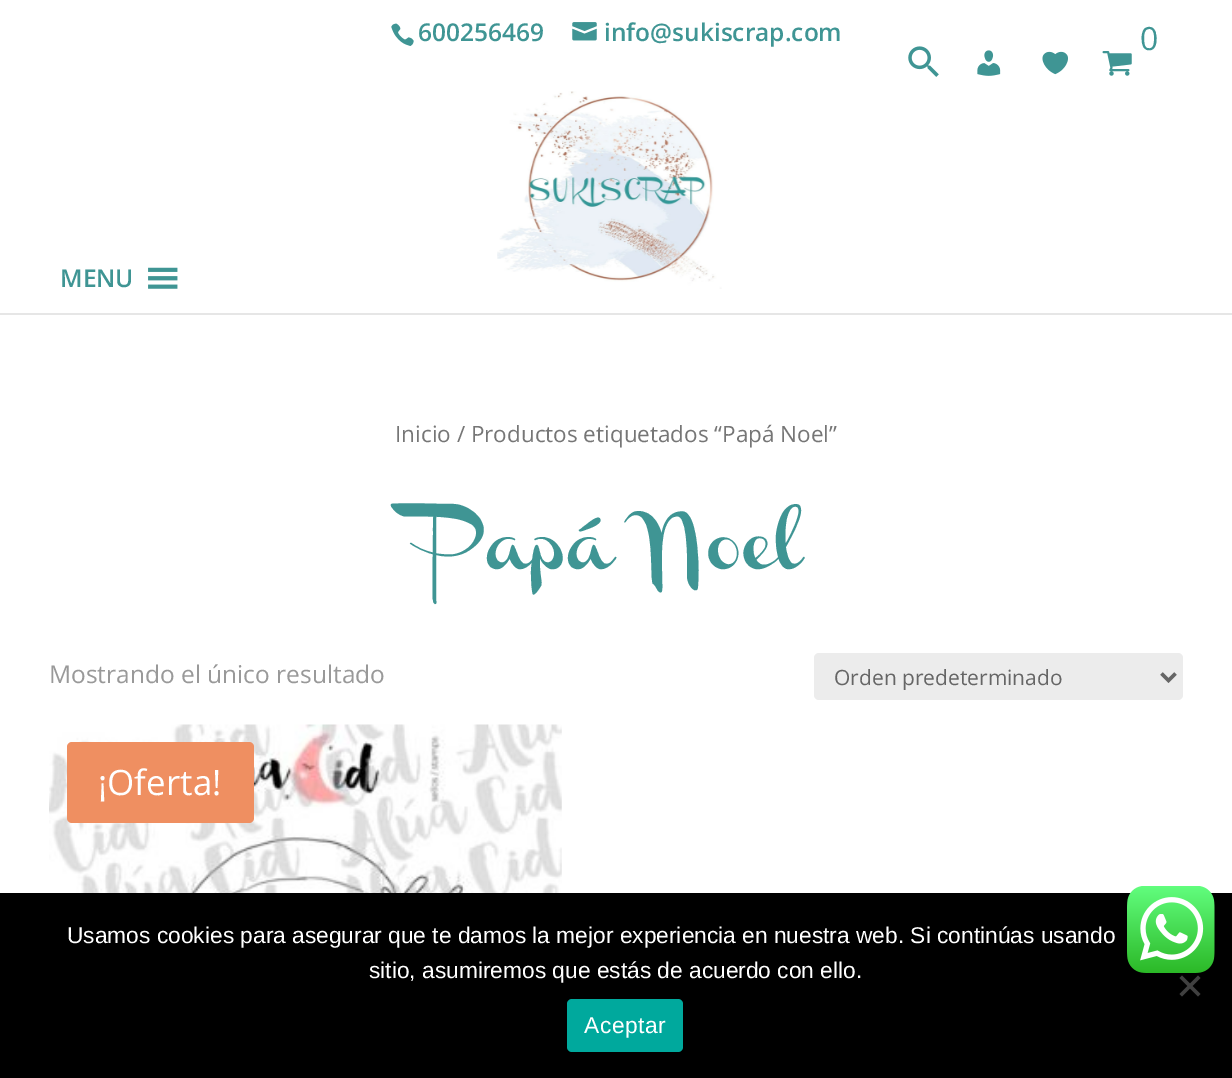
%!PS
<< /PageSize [1232 1078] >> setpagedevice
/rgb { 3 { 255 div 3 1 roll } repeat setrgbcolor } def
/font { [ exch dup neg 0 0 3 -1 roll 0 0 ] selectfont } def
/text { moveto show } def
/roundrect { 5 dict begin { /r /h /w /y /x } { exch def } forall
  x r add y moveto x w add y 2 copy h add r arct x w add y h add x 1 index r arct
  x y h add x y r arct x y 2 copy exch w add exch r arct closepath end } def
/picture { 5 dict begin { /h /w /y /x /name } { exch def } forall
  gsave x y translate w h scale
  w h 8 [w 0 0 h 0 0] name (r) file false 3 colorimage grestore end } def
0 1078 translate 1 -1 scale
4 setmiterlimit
255 255 255 rgb
0 0 1232 1078 rectfill
(img_01.rgb) 391 23 23 23 picture
(img_02.rgb) 572 22 25 19 picture
230 230 230 rgb
0 313 1232 2 rectfill
(img_03.rgb) 1102 51 30 25 picture
(img_04.rgb) 908 46 31 31 picture
(img_05.rgb) 977 50 24 26 picture
(img_06.rgb) 1042 51 26 24 picture
(img_07.rgb) 148 267 30 22 picture
(img_08.rgb) 497 91 225 198 picture
236 236 236 rgb
814 653 369 47 5 roundrect fill
102 102 102 rgb
3.5 setlinewidth
1161.5 673.5 moveto 7 7 rlineto 7 -7 rlineto stroke
(img_09.rgb) 49 724 513 169 picture
239 143 97 rgb
67 742 187 81 5 roundrect fill
0 0 0 rgb
0 893 1232 185 rectfill
64 64 64 rgb
1198 975.5 moveto 2.5 2.5 rlineto -18.5 18.5 rlineto -2.5 -2.5 rlineto closepath fill
1179.5 978 moveto 2.5 -2.5 rlineto 18.5 18.5 rlineto -2.5 2.5 rlineto closepath fill
0 169 157 rgb
567 999 116 53 5 roundrect fill
(img_10.rgb) 1127 886 88 87 picture
/OpenSans-SemiBold 24.5 font
63 149 148 rgb
(600256469) 418 41 text
(info@sukiscrap.com) 604 41 text
/OpenSans-Regular 32 font
(0) 1140 50 text
/OpenSans-SemiBold 24.5 font
(MENU) 60 287 text
/OpenSans-Regular 22.5 font
118 118 118 rgb
(Inicio / Productos etiquetados “Papá Noel”) 395 442 text
/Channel-Regular 52.5 font
63 149 148 rgb
(Papá Noel) 428 569 text
/OpenSans-Regular 24.5 font
153 153 153 rgb
(Mostrando el único resultado) 49 683 text
/OpenSans-Regular 21 font
102 102 102 rgb
(Orden predeterminado) 834 685 text
/OpenSans-Regular 35 font
255 255 255 rgb
(¡Oferta!) 98 795 text
/LiberationSans-Regular 22.75 font
(Usamos cookies para asegurar que te damos la mejor experiencia en nuestra web. Si continúas usando) 67 943 text
(sitio, asumiremos que estás de acuerdo con ello.) 369 978 text
584 1033 moveto 0.5 0 (Aceptar) ashow
showpage
